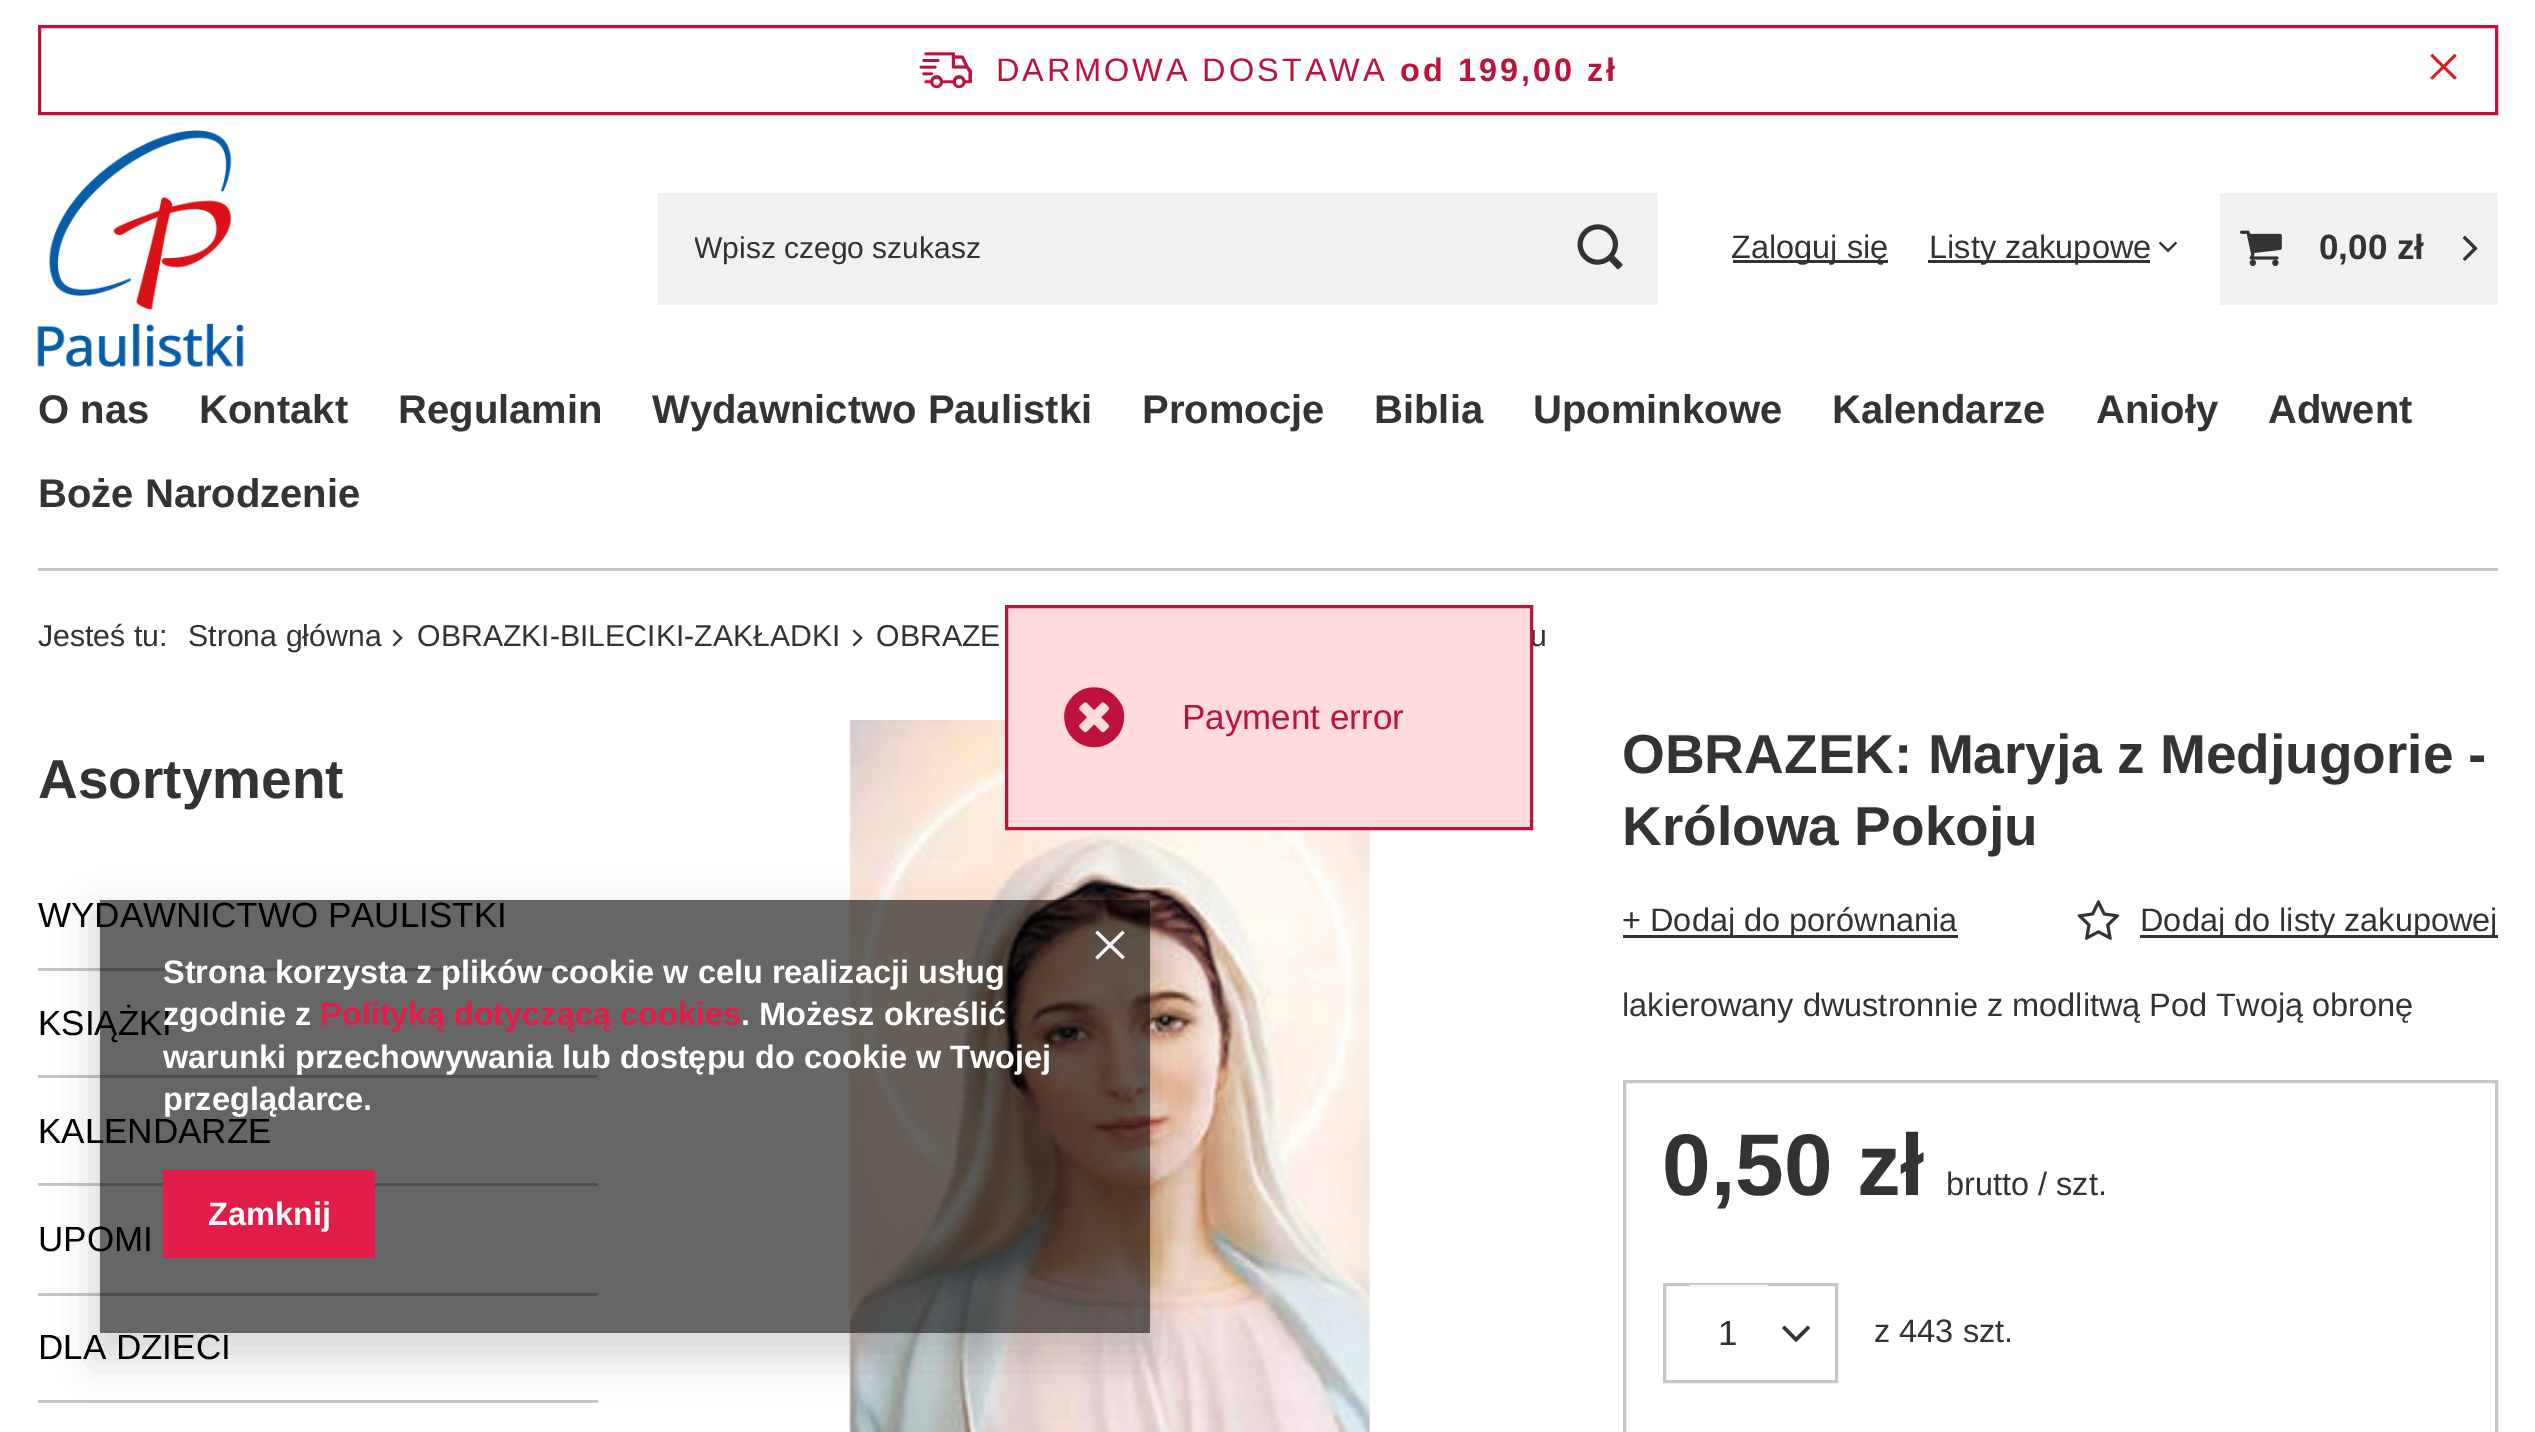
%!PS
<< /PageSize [2535 1432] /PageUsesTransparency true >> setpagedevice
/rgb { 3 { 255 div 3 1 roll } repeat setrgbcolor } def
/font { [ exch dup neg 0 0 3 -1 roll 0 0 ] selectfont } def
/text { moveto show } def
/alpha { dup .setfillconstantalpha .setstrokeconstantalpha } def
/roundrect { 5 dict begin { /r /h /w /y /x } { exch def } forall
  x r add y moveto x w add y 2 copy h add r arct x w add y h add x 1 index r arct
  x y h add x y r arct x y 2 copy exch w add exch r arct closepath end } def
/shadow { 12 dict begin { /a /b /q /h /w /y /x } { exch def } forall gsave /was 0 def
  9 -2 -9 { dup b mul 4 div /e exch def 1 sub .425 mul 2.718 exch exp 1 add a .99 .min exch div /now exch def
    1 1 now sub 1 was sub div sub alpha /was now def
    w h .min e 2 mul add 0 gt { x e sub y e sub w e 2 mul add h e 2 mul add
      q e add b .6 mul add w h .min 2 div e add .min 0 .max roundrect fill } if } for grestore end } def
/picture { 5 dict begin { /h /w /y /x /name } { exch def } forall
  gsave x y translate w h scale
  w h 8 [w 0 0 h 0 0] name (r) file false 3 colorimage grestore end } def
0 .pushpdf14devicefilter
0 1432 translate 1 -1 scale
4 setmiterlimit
255 255 255 rgb
0 0 2535 1432 rectfill
190 18 60 rgb
3 setlinewidth
39.5 26.5 2457 87 rectstroke
(img_01.rgb) 919 52 53 37 picture
(img_02.rgb) 2430 53 27 27 picture
(img_03.rgb) 37 130 207 237 picture
241 241 241 rgb
658 193 1000 112 rectfill
(img_04.rgb) 1577 224 46 46 picture
51 51 51 rgb
1733 260 155 3 rectfill
1928 260 222 3 rectfill
(img_05.rgb) 2158 241 19 12 picture
241 241 241 rgb
2220 193 278 112 rectfill
(img_06.rgb) 2240 230 42 36 picture
(img_07.rgb) 2462 235 16 26 picture
196 199 200 rgb
38 568 2460 3 rectfill
(img_08.rgb) 392 629 11 18 picture
(img_08.rgb) 852 629 11 18 picture
38 968 560 3 rectfill
38 1075 560 3 rectfill
38 1183 560 3 rectfill
38 1293 560 3 rectfill
38 1400 560 3 rectfill
(img_09.rgb) 849 720 521 712 picture
51 51 51 rgb
1623 935 335 3 rectfill
(img_10.rgb) 2077 900 43 40 picture
2140 935 358 3 rectfill
196 199 200 rgb
1624.5 1081.5 872 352 rectstroke
1664.5 1284.5 172 97 rectstroke
(img_11.rgb) 1782 1325 28 17 picture
255 255 255 rgb
1690 1285 78 1 rectfill
gsave
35 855 moveto 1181 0 rlineto 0 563 rlineto -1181 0 rlineto closepath 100 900 moveto 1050 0 rlineto 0 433 rlineto -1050 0 rlineto closepath eoclip newpath
0 0 0 rgb
93 913 1065 447 0 19 0.15 shadow
grestore
/LiberationSans-Regular 32.5 font
190 18 60 rgb
996 81 moveto 3 0 (DARMOWA DOSTAWA) ashow
/LiberationSans-Bold 32.5 font
1400 81 moveto 3 0 (od 199,00 zł) ashow
gsave
695 230 775 35 rectclip
/LiberationSans-Regular 30 font
51 51 51 rgb
(Wpisz czego szukasz) 694 258 text
grestore
/LiberationSans-Regular 32.5 font
51 51 51 rgb
(Zaloguj się) 1731 258 text
(Listy zakupowe) 1929 258 text
/LiberationSans-Bold 35 font
(0,00 zł) 2319 259 text
/LiberationSans-Bold 40 font
(O nas) 38 423 text
(Kontakt) 199 423 text
(Regulamin) 398 423 text
(Wydawnictwo Paulistki) 652 423 text
(Promocje) 1142 423 text
(Biblia) 1374 423 text
(Upominkowe) 1533 423 text
(Kalendarze) 1832 423 text
(Anioły) 2096 423 text
(Adwent) 2268 423 text
(Boże Narodzenie) 38 507 text
/LiberationSans-Regular 30.25 font
(Jesteś tu:) 38 646 text
(Strona główna) 188 646 text
(OBRAZKI-BILECIKI-ZAKŁADKI) 417 646 text
(OBRAZE) 876 646 text
(u) 1530 646 text
/LiberationSans-Bold 55 font
(Asortyment) 38 798 text
/LiberationSans-Regular 35 font
0 0 0 rgb
(WYDAWNICTWO PAULISTKI) 38 927 text
(KSIĄŻKI) 38 1035 text
(KALENDARZE) 38 1143 text
(UPOMI) 38 1251 text
(DLA DZIECI) 38 1359 text
/LiberationSans-Bold 55 font
51 51 51 rgb
(OBRAZEK: Maryja z Medjugorie -) 1622 773 text
(Królowa Pokoju) 1622 845 text
/LiberationSans-Regular 32.5 font
(+ Dodaj do porównania) 1622 931 text
(Dodaj do listy zakupowej) 2140 931 text
(lakierowany dwustronnie z modlitwą Pod Twoją obronę) 1622 1016 text
/LiberationSans-Bold 87.5 font
(0,50 zł) 1662 1195 text
/LiberationSans-Regular 32.5 font
(brutto / szt.) 1946 1195 text
/LiberationSans-Regular 35 font
(1) 1718 1345 text
/LiberationSans-Regular 32.5 font
(z 443 szt.) 1874 1342 text
255 219 221 rgb
1006.5 606.5 moveto 525 0 rlineto 0 222 rlineto -525 0 rlineto closepath gsave fill grestore
190 18 60 rgb
stroke
(img_12.rgb) 1064 687 61 61 picture
/LiberationSans-Regular 35 font
(Payment error) 1182 729 text
0.6 alpha
0 0 0 rgb
100 900 1050 433 rectfill
1 alpha
(img_13.rgb) 1095 930 30 30 picture
/LiberationSans-Bold 32.5 font
255 255 255 rgb
(Strona korzysta z plików cookie w celu realizacji usług) 163 983 text
(zgodnie z) 163 1025 text
225 29 72 rgb
(Polityką dotyczącą cookies) 320 1025 text
255 255 255 rgb
(. Możesz określić) 741 1025 text
(warunki przechowywania lub dostępu do cookie w Twojej) 163 1068 text
(przeglądarce.) 163 1110 text
225 29 72 rgb
163 1170 212 88 rectfill
255 255 255 rgb
(Zamknij) 208 1225 text
.poppdf14devicefilter showpage
